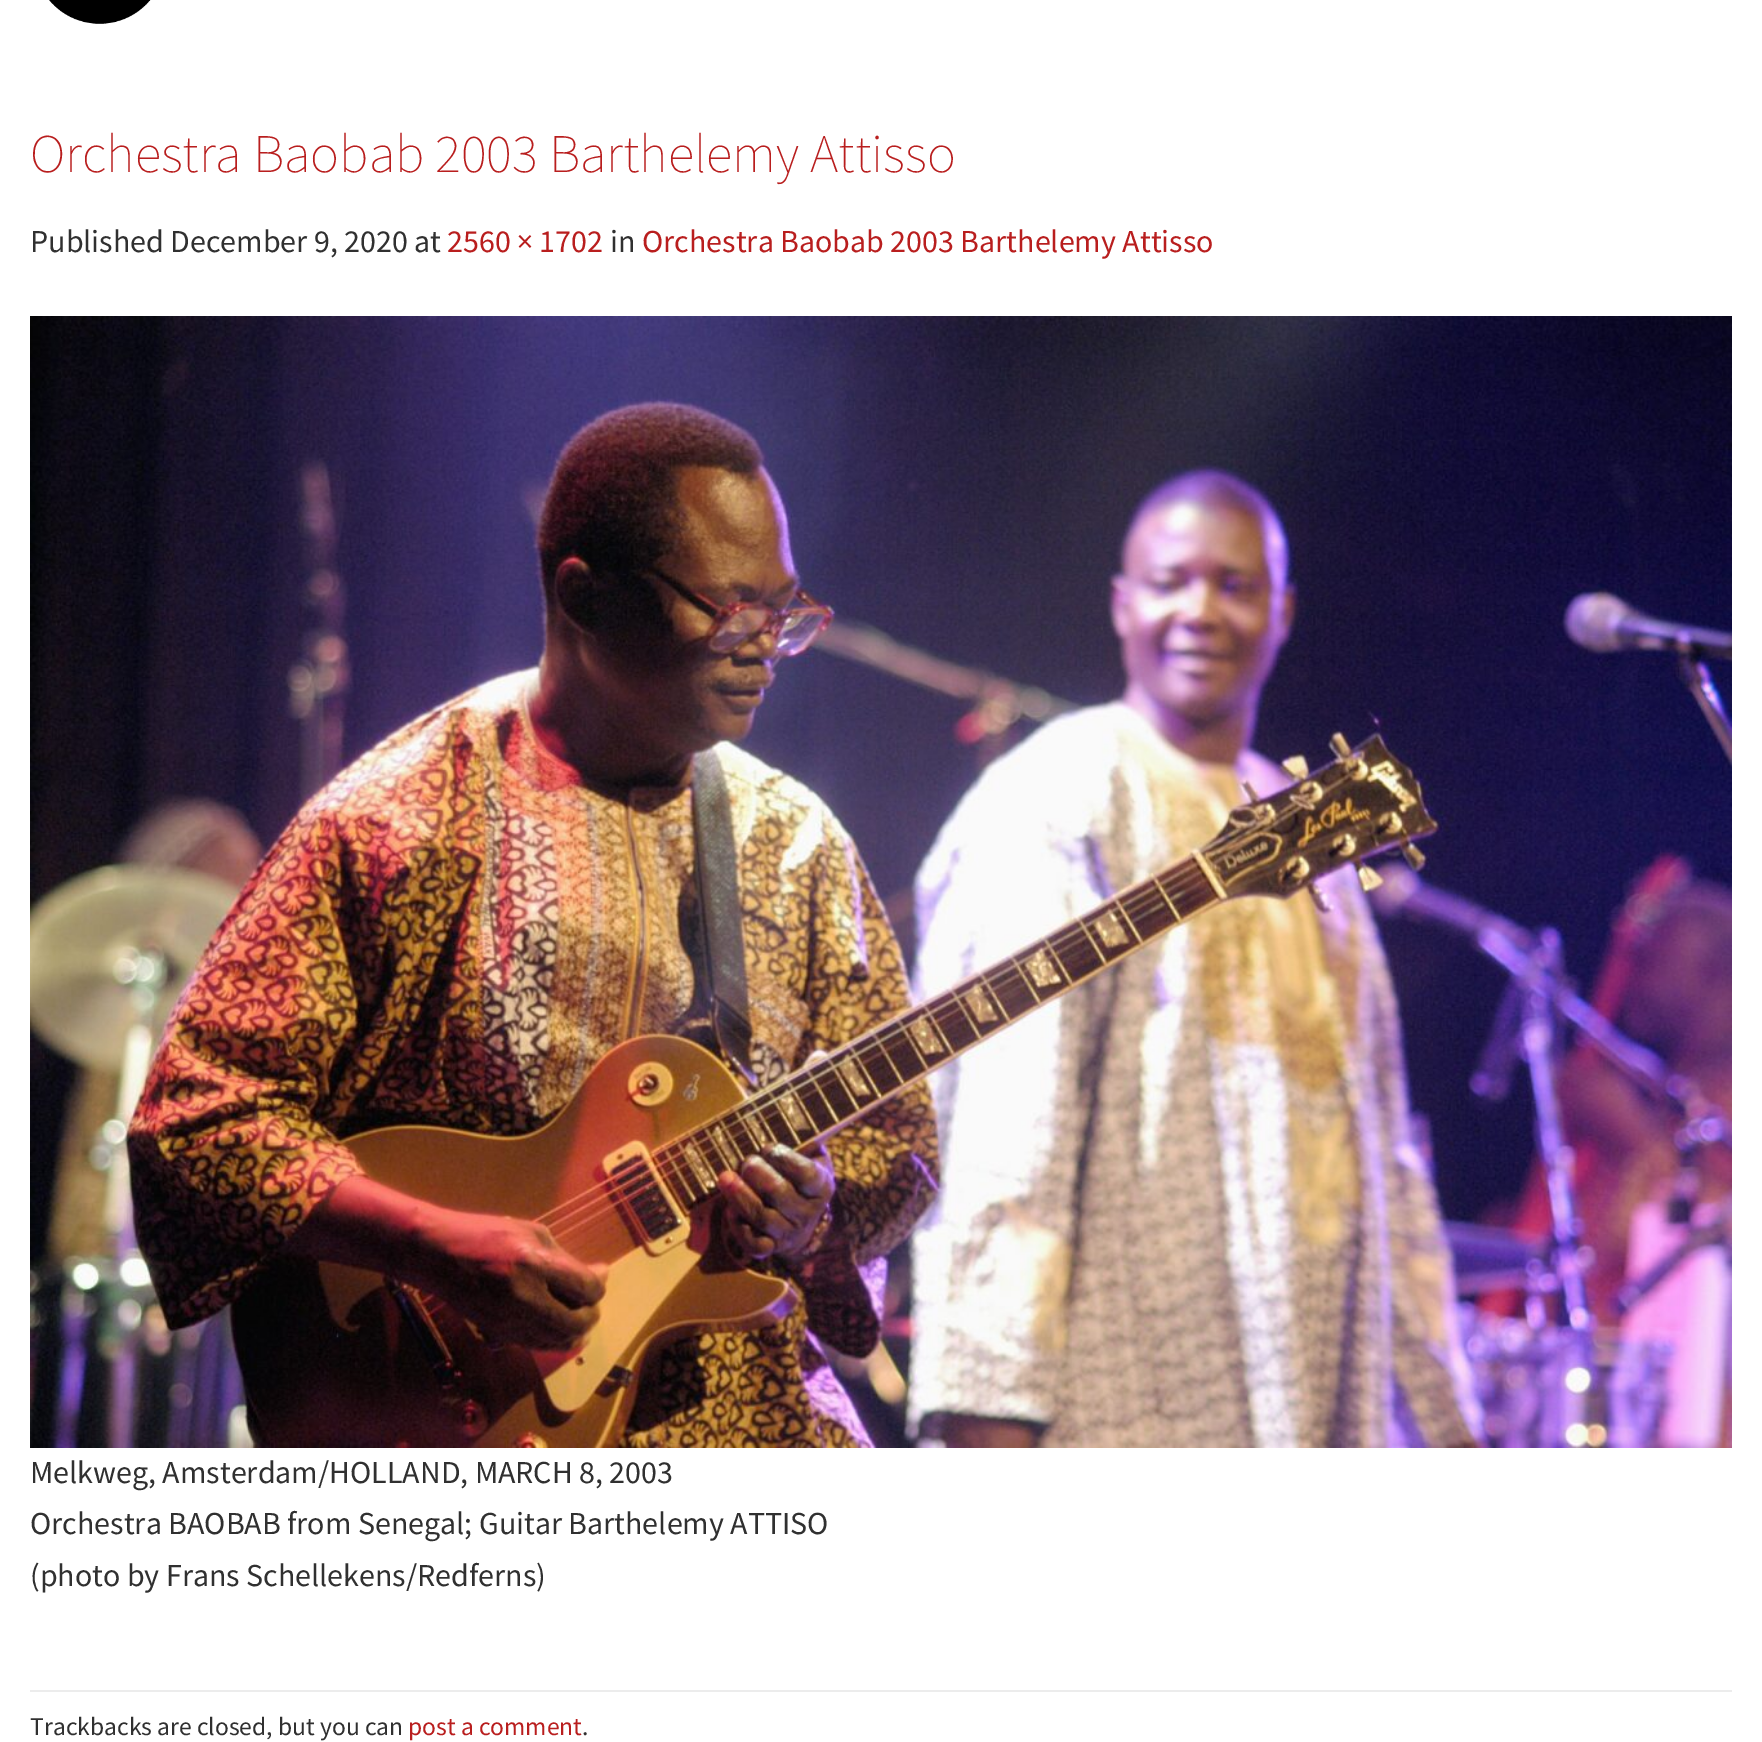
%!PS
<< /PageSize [1762 1742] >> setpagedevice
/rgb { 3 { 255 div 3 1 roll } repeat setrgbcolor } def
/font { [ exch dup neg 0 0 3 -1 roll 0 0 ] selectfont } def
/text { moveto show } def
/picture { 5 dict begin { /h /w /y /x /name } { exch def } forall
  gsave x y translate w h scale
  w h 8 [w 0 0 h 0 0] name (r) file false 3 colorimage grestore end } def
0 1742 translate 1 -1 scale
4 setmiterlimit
255 255 255 rgb
0 0 1762 1742 rectfill
(img_01.rgb) 49 0 102 24 picture
(img_02.rgb) 30 316 1702 1132 picture
236 236 236 rgb
30 1690 1702 2 rectfill
/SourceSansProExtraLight-ExtraLight 54.4 font
185 30 30 rgb
(Orchestra Baobab 2003 Barthelemy Attisso) 30 172 text
/SourceSansPro-Regular 32 font
48 48 48 rgb
(Published December 9, 2020 at) 30 252 text
185 30 30 rgb
(2560 × 1702) 447 252 text
48 48 48 rgb
(in) 610 252 text
185 30 30 rgb
(Orchestra Baobab 2003 Barthelemy Attisso) 642 252 text
48 48 48 rgb
(Melkweg, Amsterdam/HOLLAND, MARCH 8, 2003) 30 1483 text
(Orchestra BAOBAB from Senegal; Guitar Barthelemy ATTISO) 30 1534 text
(\(photo by Frans Schellekens/Redferns\)) 30 1586 text
/SourceSansPro-Regular 25.6 font
(Trackbacks are closed, but you can) 30 1735 text
185 30 30 rgb
(post a comment) 408 1735 text
48 48 48 rgb
(.) 582 1735 text
showpage
